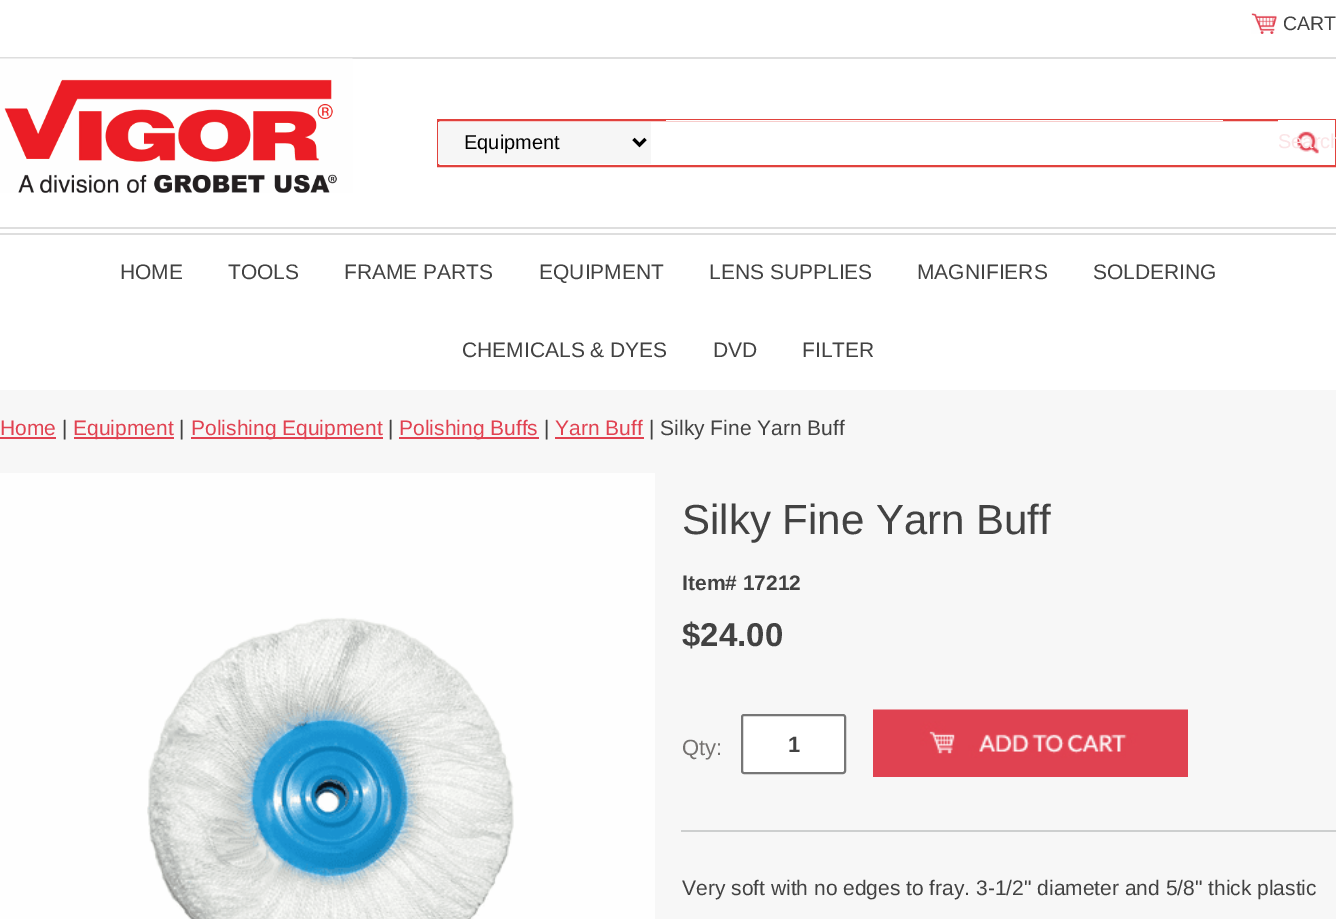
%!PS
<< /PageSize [1336 919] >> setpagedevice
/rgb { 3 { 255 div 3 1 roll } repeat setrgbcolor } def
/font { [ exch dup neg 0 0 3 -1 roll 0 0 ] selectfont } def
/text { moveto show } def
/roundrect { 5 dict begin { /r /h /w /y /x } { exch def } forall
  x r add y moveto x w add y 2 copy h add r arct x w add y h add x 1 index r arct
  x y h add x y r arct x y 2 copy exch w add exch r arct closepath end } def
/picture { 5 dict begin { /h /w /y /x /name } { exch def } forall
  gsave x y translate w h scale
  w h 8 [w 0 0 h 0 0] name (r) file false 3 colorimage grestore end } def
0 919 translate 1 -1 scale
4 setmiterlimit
255 255 255 rgb
0 0 1336 919 rectfill
(img_01.rgb) 1251 13 26 21 picture
222 222 222 rgb
0 57 1336 2 rectfill
0 227 1336 2 rectfill
(img_02.rgb) 0 58 353 135 picture
225 66 61 rgb
2 setlinewidth
438 120 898 46 rectstroke
255 255 255 rgb
666 120 557 1 rectfill
246 246 246 rgb
438 122 213 42 rectfill
0 0 0 rgb
3 setlinewidth
633.5 139 moveto 6 6 rlineto 6 -6 rlineto stroke
(img_03.rgb) 1278 120 57 42 picture
222 222 222 rgb
0 233 1336 2 rectfill
247 247 247 rgb
0 390 1336 529 rectfill
225 66 81 rgb
0 437 56 2 rectfill
74 437 100 2 rectfill
191 437 192 2 rectfill
399 437 140 2 rectfill
555 437 89 2 rectfill
(img_04.rgb) 0 473 655 446 picture
255 255 255 rgb
742 715 103 58 2 roundrect gsave fill grestore
118 118 118 rgb
2 setlinewidth
stroke
(img_05.rgb) 873 709 315 68 picture
205 207 207 rgb
681 830 655 2 rectfill
/LiberationSans-Regular 19.5 font
66 66 66 rgb
(CART) 1283 30 text
/LiberationSans-Regular 20 font
0 0 0 rgb
(Equipment) 464 149 text
251 228 230 rgb
(Search) 1278 148 text
/LiberationSans-Regular 21 font
66 66 66 rgb
(HOME) 120 279 text
(TOOLS) 228 279 text
(FRAME PARTS) 344 279 text
(EQUIPMENT) 539 279 text
(LENS SUPPLIES) 709 279 text
(MAGNIFIERS) 917 279 text
(SOLDERING) 1093 279 text
(CHEMICALS & DYES) 462 357 text
(DVD) 713 357 text
(FILTER) 802 357 text
225 66 81 rgb
(Home) 0 435 text
66 66 66 rgb
(|) 62 435 text
225 66 81 rgb
(Equipment) 73 435 text
66 66 66 rgb
(|) 179 435 text
225 66 81 rgb
(Polishing Equipment) 191 435 text
66 66 66 rgb
(|) 388 435 text
225 66 81 rgb
(Polishing Buffs) 399 435 text
66 66 66 rgb
(|) 544 435 text
225 66 81 rgb
(Yarn Buff) 555 435 text
66 66 66 rgb
(| Silky Fine Yarn Buff) 649 435 text
/LiberationSans-Regular 42 font
(Silky Fine Yarn Buff) 682 534 text
/LiberationSans-Bold 21 font
(Item# 17212) 682 590 text
/LiberationSans-Bold 33 font
($24.00) 682 646 text
/LiberationSans-Regular 22 font
117 114 112 rgb
(Qty:) 682 755 text
/LiberationSans-Bold 22 font
66 66 66 rgb
(1) 788 752 text
/LiberationSans-Regular 21 font
(Very soft with no edges to fray. 3-1/2" diameter and 5/8" thick plastic) 682 895 text
showpage
